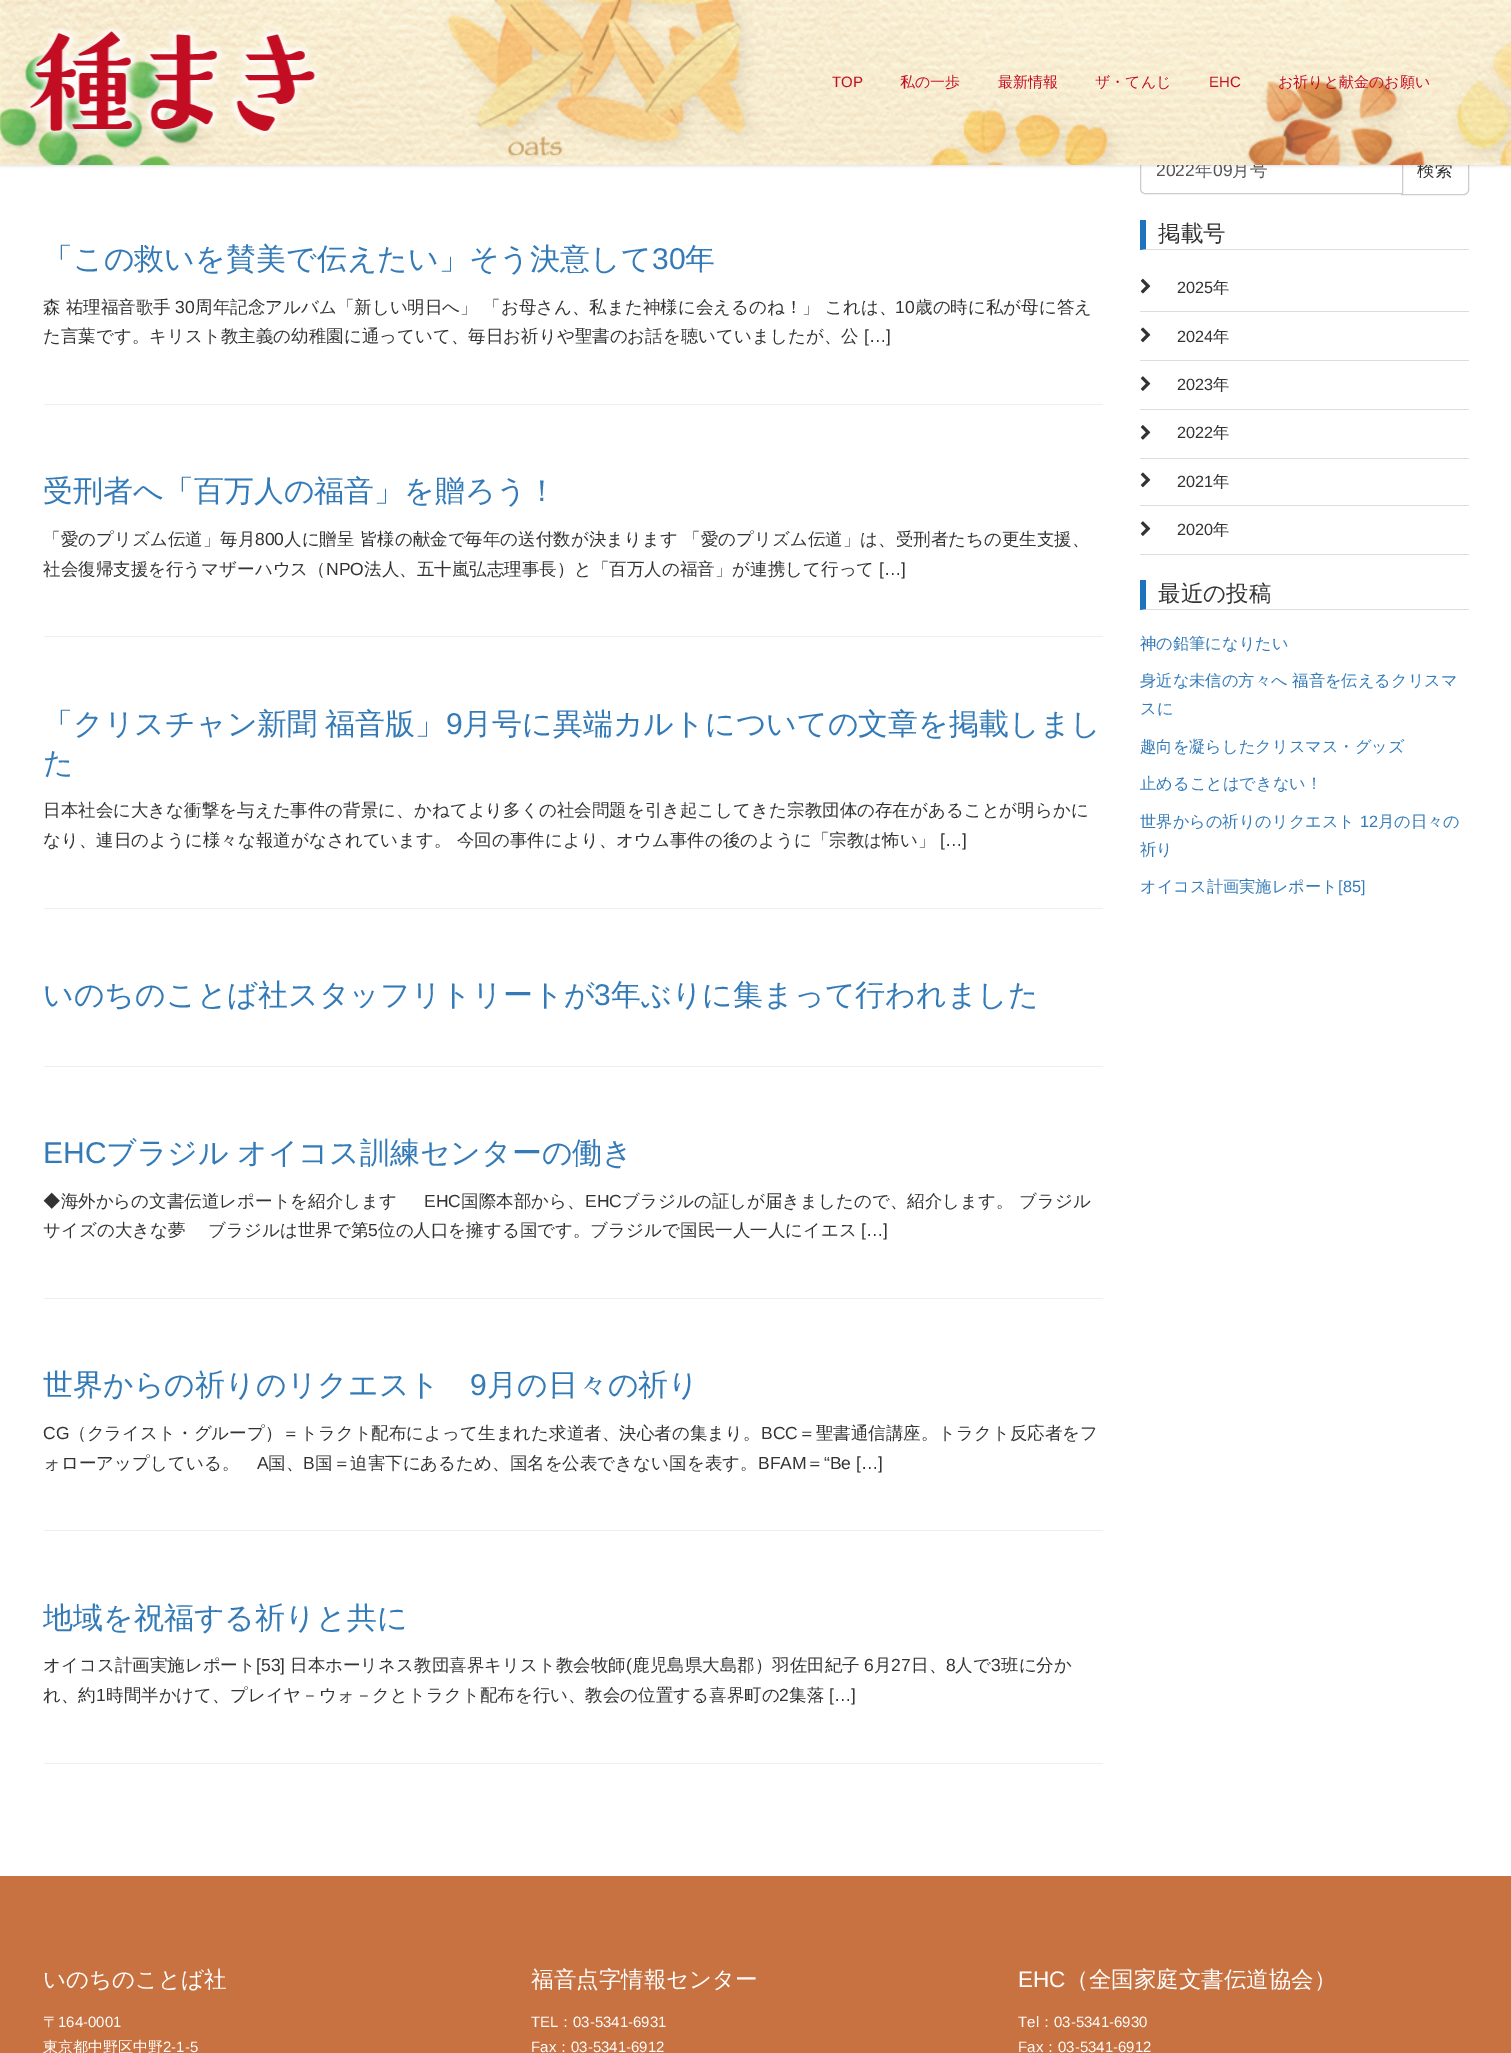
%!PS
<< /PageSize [1511 2053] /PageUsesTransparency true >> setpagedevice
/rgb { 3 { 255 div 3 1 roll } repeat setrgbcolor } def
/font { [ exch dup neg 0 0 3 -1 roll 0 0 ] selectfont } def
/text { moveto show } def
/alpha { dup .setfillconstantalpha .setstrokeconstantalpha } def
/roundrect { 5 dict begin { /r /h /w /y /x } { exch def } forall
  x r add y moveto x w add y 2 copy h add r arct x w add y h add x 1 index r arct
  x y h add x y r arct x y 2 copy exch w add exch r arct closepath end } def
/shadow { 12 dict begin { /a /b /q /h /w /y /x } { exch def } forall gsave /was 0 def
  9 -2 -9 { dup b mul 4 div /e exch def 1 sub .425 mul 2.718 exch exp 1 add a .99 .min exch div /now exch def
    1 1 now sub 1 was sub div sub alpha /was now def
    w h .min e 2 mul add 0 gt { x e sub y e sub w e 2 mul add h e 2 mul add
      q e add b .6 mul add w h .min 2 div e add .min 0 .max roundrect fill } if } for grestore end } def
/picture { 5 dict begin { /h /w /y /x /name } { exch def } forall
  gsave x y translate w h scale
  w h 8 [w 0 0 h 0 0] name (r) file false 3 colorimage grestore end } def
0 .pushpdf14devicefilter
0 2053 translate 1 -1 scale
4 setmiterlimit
255 255 255 rgb
0 0 1511 2053 rectfill
204 204 204 rgb
1401.5 148.5 moveto 62.5 0 rlineto 2.5 0 4.5 2 4.5 4.5 rcurveto 0 37 rlineto 0 2.5 -2 4.5 -4.5 4.5 rcurveto -62.5 0 rlineto closepath stroke
255 255 255 rgb
1145 148.5 moveto 257.5 0 rlineto 0 45 rlineto -257.5 0 rlineto -2.5 0 -4.5 -2 -4.5 -4.5 rcurveto 0 -36 rlineto 0 -2.5 2 -4.5 4.5 -4.5 rcurveto closepath gsave fill grestore
204 204 204 rgb
stroke
0 0 0 rgb
0 0 1511 165 0 2 0.2 shadow
238 238 238 rgb
44 404 1059 1 rectfill
44 636 1059 1 rectfill
44 908 1059 1 rectfill
44 1066 1059 1 rectfill
44 1298 1059 1 rectfill
44 1530 1059 1 rectfill
44 1763 1059 1 rectfill
221 221 221 rgb
1469 250 moveto -329 0 rlineto 6 -1 rlineto 323 0 rlineto closepath fill
30 115 190 rgb
1140 250 moveto 0 -30 rlineto 6 0 rlineto 0 29 rlineto closepath fill
221 221 221 rgb
1140 311 329 1 rectfill
(img_03.rgb) 1140 278 11 16 picture
1140 360 329 1 rectfill
(img_04.rgb) 1140 327 11 16 picture
1140 409 329 1 rectfill
(img_05.rgb) 1140 376 11 15 picture
1140 458 329 1 rectfill
(img_06.rgb) 1140 425 11 15 picture
1140 505 329 1 rectfill
(img_04.rgb) 1140 472 11 16 picture
1140 554 329 1 rectfill
(img_05.rgb) 1140 521 11 15 picture
1469 610 moveto -329 0 rlineto 6 -1 rlineto 323 0 rlineto closepath fill
30 115 190 rgb
1140 610 moveto 0 -30 rlineto 6 0 rlineto 0 29 rlineto closepath fill
200 114 65 rgb
0 1876 1511 177 rectfill
/WenQuanYiZenHei-Medium 30 font
51 122 183 rgb
(「この救いを賛美で伝えたい」そう決意して) 43 269 text
/LiberationSans-Regular 30 font
(30) 652 269 text
/WenQuanYiZenHei-Medium 30 font
(年) 685 269 text
/WenQuanYiZenHei-Medium 17.5 font
51 51 51 rgb
(森 祐理福音歌手) 43 313 text
/LiberationSans-Regular 17.5 font
(30) 175 313 text
/WenQuanYiZenHei-Medium 17.5 font
(周年記念アルバム「新しい明日へ」 「お母さん、私また神様に会えるのね！」 これは、) 195 313 text
/LiberationSans-Regular 17.5 font
(10) 895 313 text
/WenQuanYiZenHei-Medium 17.5 font
(歳の時に私が母に答え) 915 313 text
(た言葉です。キリスト教主義の幼稚園に通っていて、毎日お祈りや聖書のお話を聴いていましたが、公) 43 342 text
/LiberationSans-Regular 17.5 font
([…]) 864 342 text
/WenQuanYiZenHei-Medium 30 font
51 122 183 rgb
(受刑者へ「百万人の福音」を贈ろう！) 43 501 text
/WenQuanYiZenHei-Medium 17.5 font
51 51 51 rgb
(「愛のプリズム伝道」毎月) 43 545 text
/LiberationSans-Regular 17.5 font
(800) 255 545 text
/WenQuanYiZenHei-Medium 17.5 font
(人に贈呈 皆様の献金で毎年の送付数が決まります 「愛のプリズム伝道」は、受刑者たちの更生支援、) 284 545 text
(社会復帰支援を行うマザーハウス（) 43 575 text
/LiberationSans-Regular 17.5 font
(NPO) 326 575 text
/WenQuanYiZenHei-Medium 17.5 font
(法人、五十嵐弘志理事長）と「百万人の福音」が連携して行って) 364 575 text
/LiberationSans-Regular 17.5 font
([…]) 879 575 text
/WenQuanYiZenHei-Medium 30 font
51 122 183 rgb
43 734 moveto -1 0 32 (「クリスチャン新聞 福音版」) widthshow
/LiberationSans-Regular 30 font
(9) 446 734 text
/WenQuanYiZenHei-Medium 30 font
(月号に異端カルトについての文章を掲載しまし) 462 734 text
(た) 43 773 text
/WenQuanYiZenHei-Medium 17.5 font
51 51 51 rgb
(日本社会に大きな衝撃を与えた事件の背景に、かねてより多くの社会問題を引き起こしてきた宗教団体の存在があることが明らかに) 43 816 text
(なり、連日のように様々な報道がなされています。 今回の事件により、オウム事件の後のように「宗教は怖い」) 43 846 text
/LiberationSans-Regular 17.5 font
([…]) 940 846 text
/WenQuanYiZenHei-Medium 30 font
51 122 183 rgb
(いのちのことば社スタッフリトリートが) 43 1005 text
/LiberationSans-Regular 30 font
(3) 594 1005 text
/WenQuanYiZenHei-Medium 30 font
(年ぶりに集まって行われました) 611 1005 text
/LiberationSans-Regular 30 font
(EHC) 43 1163 text
/WenQuanYiZenHei-Medium 30 font
106 1163 moveto -1 0 32 (ブラジル オイコス訓練センターの働き) widthshow
/WenQuanYiZenHei-Medium 17.5 font
51 51 51 rgb
(◆海外からの文書伝道レポートを紹介します) 43 1207 text
/LiberationSans-Regular 17.5 font
(EHC) 424 1207 text
/WenQuanYiZenHei-Medium 17.5 font
(国際本部から、) 461 1207 text
/LiberationSans-Regular 17.5 font
(EHC) 585 1207 text
/WenQuanYiZenHei-Medium 17.5 font
(ブラジルの証しが届きましたので、紹介します。 ブラジル) 622 1207 text
(サイズの大きな夢 　ブラジルは世界で第) 43 1236 text
/LiberationSans-Regular 17.5 font
(5) 368 1236 text
/WenQuanYiZenHei-Medium 17.5 font
(位の人口を擁する国です。ブラジルで国民一人一人にイエス) 378 1236 text
/LiberationSans-Regular 17.5 font
([…]) 861 1236 text
/WenQuanYiZenHei-Medium 30 font
51 122 183 rgb
(世界からの祈りのリクエスト) 43 1395 text
/LiberationSans-Regular 30 font
(9) 470 1395 text
/WenQuanYiZenHei-Medium 30 font
(月の日々の祈り) 487 1395 text
/LiberationSans-Regular 17.5 font
51 51 51 rgb
(CG) 43 1439 text
/WenQuanYiZenHei-Medium 17.5 font
(（クライスト・グループ）＝トラクト配布によって生まれた求道者、決心者の集まり。) 69 1439 text
/LiberationSans-Regular 17.5 font
(BCC) 761 1439 text
/WenQuanYiZenHei-Medium 17.5 font
(＝聖書通信講座。トラクト反応者をフ) 798 1439 text
(ォローアップしている。) 43 1469 text
/LiberationSans-Regular 17.5 font
(A) 257 1469 text
/WenQuanYiZenHei-Medium 17.5 font
(国、) 268 1469 text
/LiberationSans-Regular 17.5 font
(B) 303 1469 text
/WenQuanYiZenHei-Medium 17.5 font
(国＝迫害下にあるため、国名を公表できない国を表す。) 315 1469 text
/LiberationSans-Regular 17.5 font
(BFAM) 758 1469 text
/WenQuanYiZenHei-Medium 17.5 font
(＝) 806 1469 text
/LiberationSans-Regular 17.5 font
(“Be […]) 824 1469 text
/WenQuanYiZenHei-Medium 30 font
51 122 183 rgb
(地域を祝福する祈りと共に) 43 1628 text
/WenQuanYiZenHei-Medium 17.5 font
51 51 51 rgb
(オイコス計画実施レポート) 43 1671 text
/LiberationSans-Regular 17.5 font
([53]) 256 1671 text
/WenQuanYiZenHei-Medium 17.5 font
(日本ホーリネス教団喜界キリスト教会牧師) 290 1671 text
/LiberationSans-Regular 17.5 font
(\() 626 1671 text
/WenQuanYiZenHei-Medium 17.5 font
(鹿児島県大島郡）羽佐田紀子) 632 1671 text
/LiberationSans-Regular 17.5 font
(6) 864 1671 text
/WenQuanYiZenHei-Medium 17.5 font
(月) 874 1671 text
/LiberationSans-Regular 17.5 font
(27) 891 1671 text
/WenQuanYiZenHei-Medium 17.5 font
(日、) 911 1671 text
/LiberationSans-Regular 17.5 font
(8) 946 1671 text
/WenQuanYiZenHei-Medium 17.5 font
(人で) 955 1671 text
/LiberationSans-Regular 17.5 font
(3) 991 1671 text
/WenQuanYiZenHei-Medium 17.5 font
(班に分か) 1001 1671 text
(れ、約) 43 1701 text
/LiberationSans-Regular 17.5 font
(1) 96 1701 text
/WenQuanYiZenHei-Medium 17.5 font
(時間半かけて、プレイヤ－ウォ－クとトラクト配布を行い、教会の位置する喜界町の) 106 1701 text
/LiberationSans-Regular 17.5 font
(2) 779 1701 text
/WenQuanYiZenHei-Medium 17.5 font
(集落) 789 1701 text
/LiberationSans-Regular 17.5 font
([…]) 829 1701 text
85 85 85 rgb
(2022) 1156 176 text
/WenQuanYiZenHei-Medium 17.5 font
(年) 1195 176 text
/LiberationSans-Regular 17.5 font
(09) 1213 176 text
/WenQuanYiZenHei-Medium 17.5 font
(月号) 1232 176 text
51 51 51 rgb
(検索) 1417 176 text
(img_01.rgb) 0 0 1511 165 picture
/WenQuanYiZenHei-Medium 15 font
195 13 35 rgb
(お祈りと献金のお願い) 1278 87 text
/LiberationSans-Regular 15 font
(EHC) 1209 87 text
/WenQuanYiZenHei-Medium 15 font
(ザ・てんじ) 1095 87 text
(最新情報) 998 87 text
(私の一歩) 900 87 text
/LiberationSans-Regular 15 font
(TOP) 832 87 text
(img_02.rgb) 25 25 295 114 picture
/WenQuanYiZenHei-Medium 22.5 font
51 51 51 rgb
(掲載号) 1158 241 text
/LiberationSans-Regular 16.25 font
(2025) 1177 293 text
/WenQuanYiZenHei-Medium 16.25 font
(年) 1213 293 text
/LiberationSans-Regular 16.25 font
(2024) 1177 342 text
/WenQuanYiZenHei-Medium 16.25 font
(年) 1213 342 text
/LiberationSans-Regular 16.25 font
(2023) 1177 390 text
/WenQuanYiZenHei-Medium 16.25 font
(年) 1213 390 text
/LiberationSans-Regular 16.25 font
(2022) 1177 438 text
/WenQuanYiZenHei-Medium 16.25 font
(年) 1213 438 text
/LiberationSans-Regular 16.25 font
(2021) 1177 487 text
/WenQuanYiZenHei-Medium 16.25 font
(年) 1213 487 text
/LiberationSans-Regular 16.25 font
(2020) 1177 535 text
/WenQuanYiZenHei-Medium 16.25 font
(年) 1213 535 text
/WenQuanYiZenHei-Medium 22.5 font
(最近の投稿) 1158 601 text
/WenQuanYiZenHei-Medium 16.25 font
51 122 183 rgb
(神の鉛筆になりたい) 1140 649 text
(身近な未信の方々へ 福音を伝えるクリスマ) 1140 686 text
(スに) 1140 714 text
(趣向を凝らしたクリスマス・グッズ) 1140 752 text
(止めることはできない！) 1140 789 text
(世界からの祈りのリクエスト) 1140 827 text
/LiberationSans-Regular 16.25 font
(12) 1360 827 text
/WenQuanYiZenHei-Medium 16.25 font
(月の日々の) 1378 827 text
(祈り) 1140 855 text
(オイコス計画実施レポート) 1140 892 text
/LiberationSans-Regular 16.25 font
([85]) 1338 892 text
/WenQuanYiZenHei-Medium 22.5 font
255 255 255 rgb
(いのちのことば社) 43 1987 text
/WenQuanYiZenHei-Medium 15 font
(〒) 43 2027 text
/LiberationSans-Regular 15 font
(164-0001) 58 2027 text
/WenQuanYiZenHei-Medium 15 font
(東京都中野区中野) 43 2052 text
/LiberationSans-Regular 15 font
(2-1-5) 163 2052 text
/WenQuanYiZenHei-Medium 22.5 font
(福音点字情報センター) 531 1987 text
/LiberationSans-Regular 15 font
(TEL) 531 2027 text
/WenQuanYiZenHei-Medium 15 font
(：) 558 2027 text
/LiberationSans-Regular 15 font
(03-5341-6931) 573 2027 text
(Fax) 531 2052 text
/WenQuanYiZenHei-Medium 15 font
(：) 556 2052 text
/LiberationSans-Regular 15 font
(03-5341-6912) 571 2052 text
/LiberationSans-Regular 22.5 font
(EHC) 1018 1987 text
/WenQuanYiZenHei-Medium 22.5 font
(（全国家庭文書伝道協会）) 1066 1987 text
/LiberationSans-Regular 15 font
(Tel) 1018 2027 text
/WenQuanYiZenHei-Medium 15 font
(：) 1039 2027 text
/LiberationSans-Regular 15 font
(03-5341-6930) 1054 2027 text
(Fax) 1018 2052 text
/WenQuanYiZenHei-Medium 15 font
(：) 1043 2052 text
/LiberationSans-Regular 15 font
(03-5341-6912) 1058 2052 text
.poppdf14devicefilter showpage
